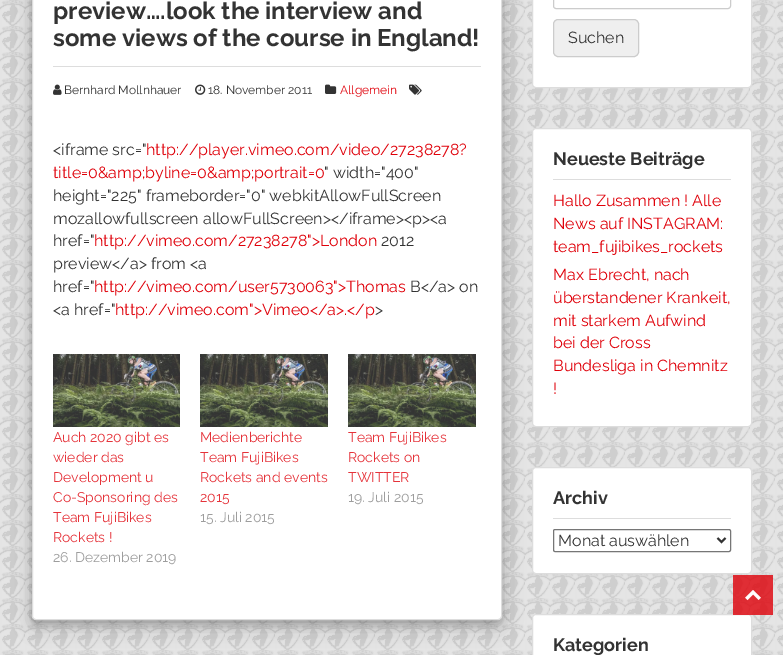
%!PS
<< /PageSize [783 655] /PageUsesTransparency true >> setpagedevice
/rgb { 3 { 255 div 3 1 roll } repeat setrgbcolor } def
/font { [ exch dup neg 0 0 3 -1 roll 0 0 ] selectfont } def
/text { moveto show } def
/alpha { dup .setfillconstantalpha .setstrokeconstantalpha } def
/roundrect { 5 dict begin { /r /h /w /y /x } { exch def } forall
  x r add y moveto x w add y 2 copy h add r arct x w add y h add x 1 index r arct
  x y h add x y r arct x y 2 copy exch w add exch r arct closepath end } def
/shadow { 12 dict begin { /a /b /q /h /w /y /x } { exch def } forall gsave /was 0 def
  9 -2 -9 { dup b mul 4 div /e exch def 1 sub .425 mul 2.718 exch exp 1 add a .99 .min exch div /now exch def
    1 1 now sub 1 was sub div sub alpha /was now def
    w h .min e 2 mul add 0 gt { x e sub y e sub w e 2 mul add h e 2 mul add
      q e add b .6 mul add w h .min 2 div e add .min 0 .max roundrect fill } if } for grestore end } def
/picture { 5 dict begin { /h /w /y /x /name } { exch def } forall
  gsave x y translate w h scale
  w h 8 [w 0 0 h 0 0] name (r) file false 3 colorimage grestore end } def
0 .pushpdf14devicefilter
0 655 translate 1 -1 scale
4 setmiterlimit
255 255 255 rgb
0 0 783 655 rectfill
(img_01.rgb) 0 0 783 655 picture
0 0 0 rgb
32 -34 470 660 4 10 0.19 shadow
32 -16 470 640 4 4 0.2 shadow
255 255 255 rgb
32.5 -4.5 469 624 3.5 roundrect gsave fill grestore
221 221 221 rgb
stroke
53 66 428 1 rectfill
(img_02.rgb) 53 84 9 11 picture
(img_03.rgb) 195 84 11 11 picture
(img_04.rgb) 325 84 12 10 picture
(img_05.rgb) 409 84 13 11 picture
(img_06.rgb) 53 354 127 73 picture
(img_07.rgb) 200 354 128 73 picture
(img_07.rgb) 348 354 128 73 picture
255 255 255 rgb
532.5 -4.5 219 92 3.5 roundrect gsave fill grestore
221 221 221 rgb
stroke
204 204 204 rgb
553.5 -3.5 177 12 2.5 roundrect stroke
239 239 239 rgb
553.5 19.5 85 37 4.5 roundrect gsave fill grestore
204 204 204 rgb
stroke
255 255 255 rgb
532.5 128.5 219 298 3.5 roundrect gsave fill grestore
221 221 221 rgb
stroke
553 179 178 1 rectfill
255 255 255 rgb
532.5 467.5 219 106 3.5 roundrect gsave fill grestore
221 221 221 rgb
stroke
553 518 178 1 rectfill
118 118 118 rgb
553.5 529.5 177 22 1.5 roundrect stroke
51 51 51 rgb
2 setlinewidth
717.5 538 moveto 4 4 rlineto 4 -4 rlineto stroke
255 255 255 rgb
532.5 614.5 219 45 3.5 roundrect gsave fill grestore
221 221 221 rgb
1 setlinewidth
stroke
0.8 alpha
223 0 9 rgb
733 575 40 40 rectfill
1 alpha
(img_08.rgb) 745 590 16 11 picture
/Raleway-Bold 24 font
51 51 51 rgb
(preview….look the interview and) 53 19 text
(some views of the course in England!) 53 46 text
/Raleway-Regular 12 font
(Bernhard Mollnhauer) 64 94 text
(18. November 2011) 208 94 text
223 0 9 rgb
(Allgemein) 340 94 text
/Raleway-Regular 16 font
51 51 51 rgb
(<iframe src=") 53 155 text
223 0 9 rgb
(http://player.vimeo.com/video/27238278?) 146 155 text
(title=0&amp;byline=0&amp;portrait=0) 53 178 text
51 51 51 rgb
(" width="400") 324 178 text
(height="225" frameborder="0" webkitAllowFullScreen) 53 201 text
(mozallowfullscreen allowFullScreen></iframe><p><a) 53 224 text
(href=") 53 246 text
223 0 9 rgb
(http://vimeo.com/27238278">London) 94 246 text
51 51 51 rgb
(2012) 381 246 text
(preview</a> from <a) 53 269 text
(href=") 53 292 text
223 0 9 rgb
(http://vimeo.com/user5730063">Thomas) 94 292 text
51 51 51 rgb
(B</a> on) 410 292 text
(<a href=") 53 315 text
223 0 9 rgb
(http://vimeo.com">Vimeo</a>.</p) 115 315 text
51 51 51 rgb
(>) 375 315 text
/Raleway-Regular 14 font
229 51 58 rgb
(Auch 2020 gibt es) 53 442 text
(wieder das) 53 462 text
(Development u) 53 482 text
(Co-Sponsoring des) 53 502 text
(Team FujiBikes) 53 522 text
(Rockets !) 53 542 text
157 157 157 rgb
(26. Dezember 2019) 53 562 text
229 51 58 rgb
(Medienberichte) 200 442 text
(Team FujiBikes) 200 462 text
(Rockets and events) 200 482 text
(2015) 200 502 text
157 157 157 rgb
(15. Juli 2015) 200 522 text
229 51 58 rgb
(Team FujiBikes) 348 442 text
(Rockets on) 348 462 text
(TWITTER) 348 482 text
157 157 157 rgb
(19. Juli 2015) 348 502 text
/Raleway-Regular 16 font
51 51 51 rgb
(Suchen) 568 43 text
/Raleway-Bold 18 font
(Neueste Beiträge) 553 165 text
/Raleway-Regular 16 font
223 0 9 rgb
(Hallo Zusammen ! Alle) 553 206 text
(News auf INSTAGRAM:) 553 229 text
(team_fujibikes_rockets) 553 252 text
(Max Ebrecht, nach) 553 280 text
(überstandener Krankeit,) 553 303 text
(mit starkem Aufwind) 553 326 text
(bei der Cross) 553 348 text
(Bundesliga in Chemnitz) 553 371 text
(!) 553 394 text
/Raleway-Bold 18 font
51 51 51 rgb
(Archiv) 553 504 text
/Raleway-Regular 16 font
(Monat auswählen) 558 546 text
/Raleway-Bold 18 font
(Kategorien) 553 651 text
.poppdf14devicefilter showpage
